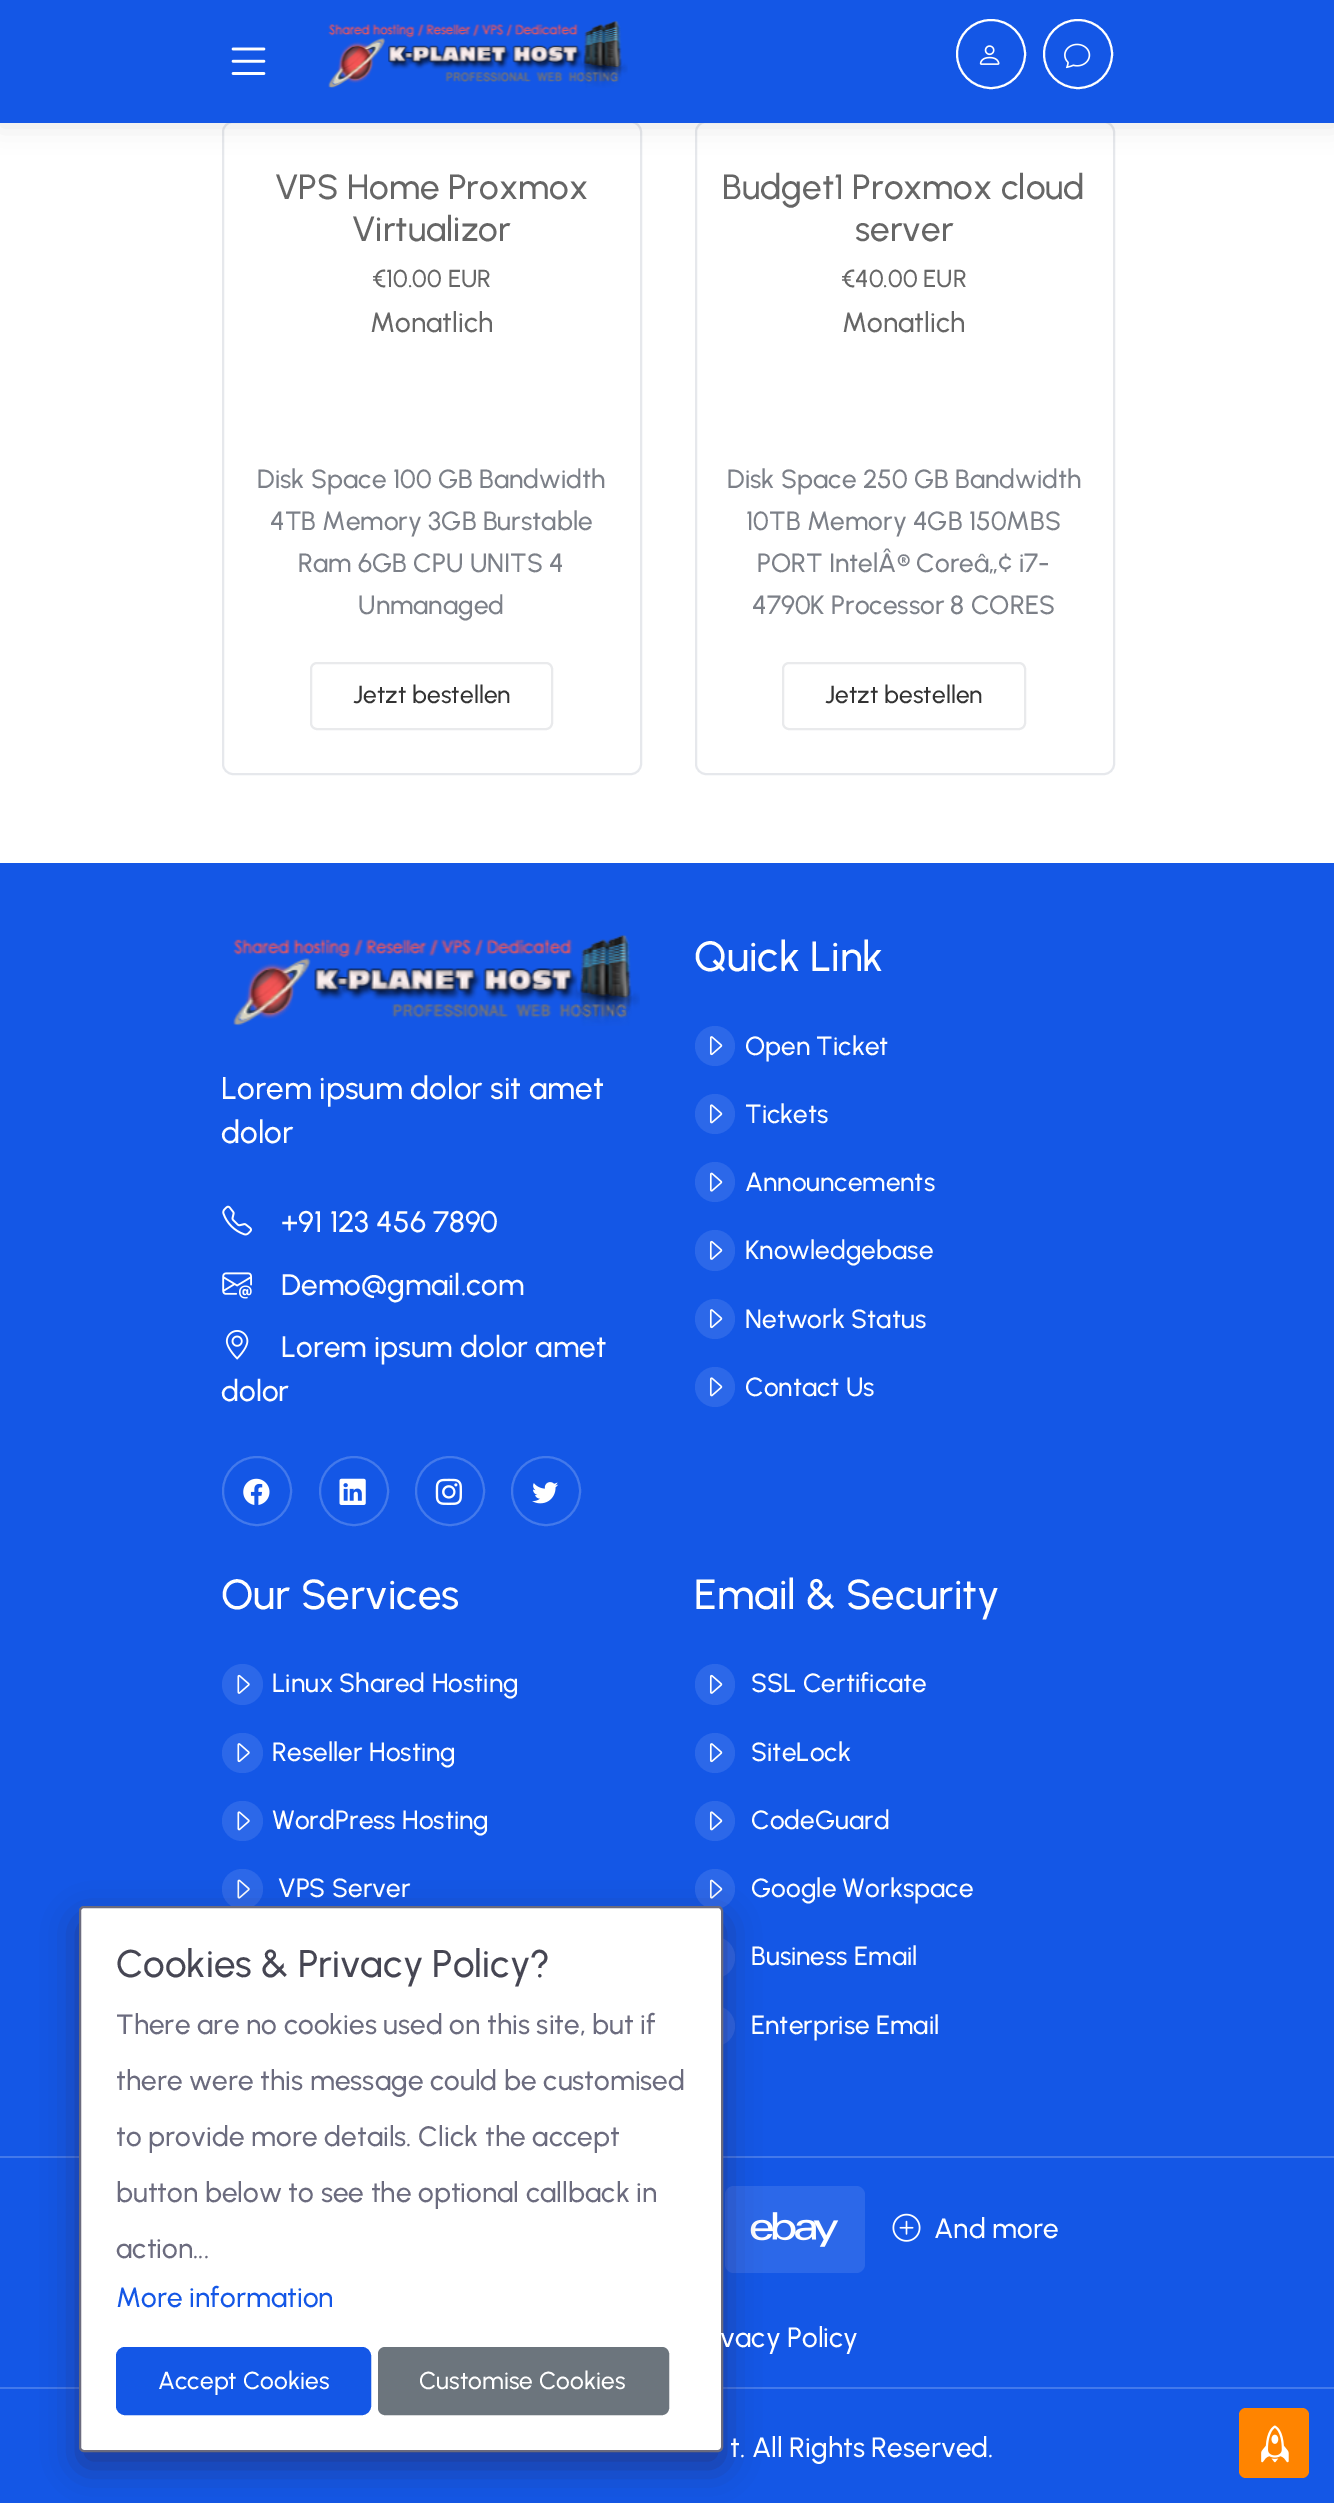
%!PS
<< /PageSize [1334 2503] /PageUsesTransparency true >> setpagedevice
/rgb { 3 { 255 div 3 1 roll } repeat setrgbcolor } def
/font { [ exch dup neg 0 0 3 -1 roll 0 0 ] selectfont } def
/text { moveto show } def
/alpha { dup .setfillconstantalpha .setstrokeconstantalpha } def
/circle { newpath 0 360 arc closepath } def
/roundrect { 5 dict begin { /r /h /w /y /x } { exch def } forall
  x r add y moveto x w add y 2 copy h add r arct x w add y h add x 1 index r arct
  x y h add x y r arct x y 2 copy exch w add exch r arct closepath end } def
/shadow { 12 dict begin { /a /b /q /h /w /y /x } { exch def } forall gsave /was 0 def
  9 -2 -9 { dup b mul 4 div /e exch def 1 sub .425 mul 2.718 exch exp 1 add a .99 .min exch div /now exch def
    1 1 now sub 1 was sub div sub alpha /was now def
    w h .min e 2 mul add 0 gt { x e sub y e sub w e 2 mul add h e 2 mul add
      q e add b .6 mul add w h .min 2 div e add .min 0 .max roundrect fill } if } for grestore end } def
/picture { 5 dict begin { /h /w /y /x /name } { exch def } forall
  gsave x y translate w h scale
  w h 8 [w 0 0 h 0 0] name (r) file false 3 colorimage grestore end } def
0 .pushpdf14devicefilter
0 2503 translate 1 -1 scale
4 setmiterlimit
255 255 255 rgb
0 0 1334 2503 rectfill
230 232 236 rgb
2 setlinewidth
223 122 418 652 10 roundrect stroke
696 122 418 652 10 roundrect stroke
0 0 0 rgb
0 4 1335 122 0 13 0.1 shadow
20 87 230 rgb
0 0 1334 123 rectfill
(img_01.rgb) 231 47 35 28 picture
(img_02.rgb) 328 21 300 67 picture
255 255 255 rgb
991 54 34 circle stroke
(img_03.rgb) 979 45 21 20 picture
1078 54 34 circle stroke
(img_04.rgb) 1064 43 27 26 picture
233 234 236 rgb
311 663 241 66 6 roundrect stroke
783 663 242 66 6 roundrect stroke
20 87 230 rgb
0 863 1334 1640 rectfill
(img_05.rgb) 233 935 407 91 picture
(img_06.rgb) 222 1205 30 31 picture
(img_07.rgb) 222 1272 30 27 picture
(img_08.rgb) 225 1330 24 30 picture
67 121 235 rgb
257 1491 34 circle stroke
(img_09.rgb) 243 1478 27 27 picture
354 1491 34 circle stroke
(img_10.rgb) 339 1478 27 27 picture
450 1491 34 circle stroke
(img_11.rgb) 435 1478 27 27 picture
546 1491 34 circle stroke
(img_12.rgb) 532 1482 27 22 picture
44 104 233 rgb
715 1046 20 circle fill
(img_13.rgb) 709 1036 14 20 picture
715 1114 20 circle fill
(img_14.rgb) 709 1104 14 20 picture
715 1182 20 circle fill
(img_15.rgb) 709 1172 14 20 picture
695 1230 40 41 20 roundrect fill
(img_16.rgb) 709 1240 14 20 picture
715 1319 20 circle fill
(img_13.rgb) 709 1309 14 20 picture
715 1387 20 circle fill
(img_14.rgb) 709 1377 14 20 picture
242.5 1684.5 20.5 circle fill
(img_17.rgb) 237 1674 13 20 picture
222 1733 41 40 20 roundrect fill
(img_18.rgb) 237 1743 13 20 picture
222 1801 41 40 20 roundrect fill
(img_19.rgb) 237 1811 13 20 picture
222 1869 41 40 20 roundrect fill
(img_20.rgb) 237 1879 13 20 picture
695 1664 40 41 20 roundrect fill
(img_16.rgb) 709 1674 14 20 picture
715 1753 20 circle fill
(img_13.rgb) 709 1743 14 20 picture
715 1821 20 circle fill
(img_14.rgb) 709 1811 14 20 picture
715 1889 20 circle fill
(img_15.rgb) 709 1879 14 20 picture
695 1937 40 41 20 roundrect fill
715 2026 20 circle fill
67 121 235 rgb
0 2156 1334 2 rectfill
0 2387 1334 2 rectfill
44 104 233 rgb
725 2186 140 87 9 roundrect fill
(img_21.rgb) 750 2212 89 35 picture
(img_22.rgb) 892 2213 29 29 picture
40 37 89 rgb
79 1920 644 546 5 17.5 0.6 shadow
255 255 255 rgb
80 1907 642 544 4 roundrect gsave fill grestore
107 107 126 rgb
stroke
20 87 230 rgb
117 2348 253 66 8 roundrect gsave fill grestore
stroke
108 117 125 rgb
379 2348 289 66 6 roundrect gsave fill grestore
stroke
255 132 0 rgb
1239 2408 70 70 7 roundrect fill
(img_23.rgb) 1261 2425 28 38 picture
/Urbanist-Medium 35 font
102 102 102 rgb
(VPS Home Proxmox) 275 199 text
(Virtualizor) 352 241 text
/Urbanist-Medium 24.5 font
(€10.00 EUR) 372 287 text
/Urbanist-Medium 28 font
(Monatlich) 370 332 text
/Urbanist-Medium 26.25 font
124 128 136 rgb
(Disk Space 100 GB Bandwidth) 257 488 text
(4TB Memory 3GB Burstable) 270 530 text
(Ram 6GB CPU UNITS 4) 298 572 text
(Unmanaged) 358 614 text
/Urbanist-Medium 24.5 font
51 51 51 rgb
(Jetzt bestellen) 353 703 text
/Urbanist-Medium 35 font
102 102 102 rgb
(Budget1 Proxmox cloud) 722 199 text
(server) 855 241 text
/Urbanist-Medium 24.5 font
(€40.00 EUR) 841 287 text
/Urbanist-Medium 28 font
(Monatlich) 842 332 text
/Urbanist-Medium 26.25 font
124 128 136 rgb
(Disk Space 250 GB Bandwidth) 727 488 text
(10TB Memory 4GB 150MBS) 746 530 text
(PORT IntelÂ® Coreâ„¢ i7-) 757 572 text
(4790K Processor 8 CORES) 752 614 text
/Urbanist-Medium 24.5 font
51 51 51 rgb
(Jetzt bestellen) 825 703 text
/Urbanist-Medium 31.5 font
255 255 255 rgb
(Lorem ipsum dolor sit amet) 221 1099 text
(dolor) 221 1143 text
/Urbanist-Medium 29.75 font
(+91 123 456 7890) 281 1232 text
(Demo@gmail.com) 281 1295 text
(Lorem ipsum dolor amet) 281 1357 text
(dolor) 221 1401 text
/Urbanist-Medium 42 font
(Quick Link) 694 971 text
/Urbanist-Medium 26.25 font
(Open Ticket) 745 1055 text
(Tickets) 745 1123 text
(Announcements) 745 1191 text
(Knowledgebase) 745 1259 text
(Network Status) 745 1328 text
(Contact Us) 745 1396 text
/Urbanist-Medium 42 font
(Our Services) 221 1609 text
/Urbanist-Medium 26.25 font
(Linux Shared Hosting) 272 1692 text
(Reseller Hosting) 272 1761 text
(WordPress Hosting) 272 1829 text
(VPS Server) 278 1897 text
/Urbanist-Medium 42 font
(Email & Security) 694 1609 text
/Urbanist-Medium 26.25 font
(SSL Certificate) 751 1692 text
(SiteLock) 751 1761 text
(CodeGuard) 751 1829 text
(Google Workspace) 751 1897 text
(Business Email) 751 1965 text
(Enterprise Email) 751 2034 text
/Urbanist-Medium 28 font
(And more) 934 2238 text
(vacy Policy) 720 2347 text
(t. All Rights Reserved.) 730 2457 text
/Urbanist-Medium 38.5 font
70 70 83 rgb
(Cookies & Privacy Policy?) 116 1977 text
/Urbanist-Medium 28 font
107 107 126 rgb
(There are no cookies used on this site, but if) 116 2034 text
(there were this message could be customised) 116 2090 text
(to provide more details. Click the accept) 116 2146 text
(button below to see the optional callback in) 116 2202 text
(action...) 116 2258 text
20 87 230 rgb
(More information) 116 2307 text
/Urbanist-Medium 24.5 font
255 255 255 rgb
(Accept Cookies) 158 2389 text
(Customise Cookies) 419 2389 text
.poppdf14devicefilter showpage
